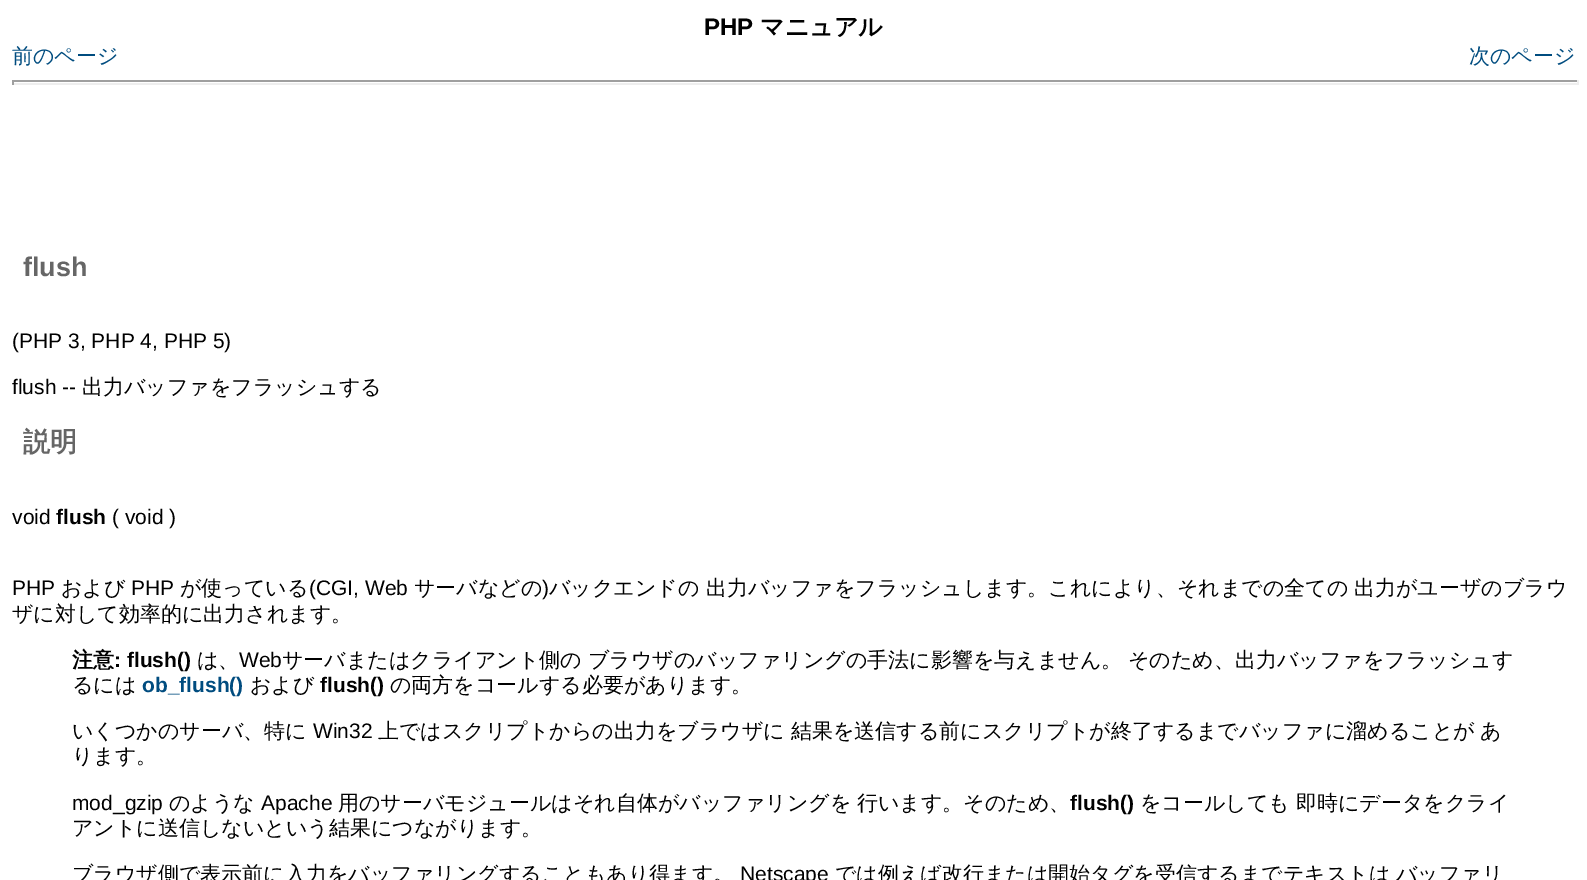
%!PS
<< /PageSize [1587 880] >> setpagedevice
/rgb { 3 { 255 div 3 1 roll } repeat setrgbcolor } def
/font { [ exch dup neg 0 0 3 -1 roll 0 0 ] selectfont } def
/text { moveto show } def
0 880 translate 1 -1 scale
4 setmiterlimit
255 255 255 rgb
0 0 1587 880 rectfill
159 159 159 rgb
12 80 1566 2 rectfill
238 238 238 rgb
1577 80 2 5 rectfill
12 83 1566 2 rectfill
159 159 159 rgb
12 80 2 5 rectfill
/LiberationSans-Bold 24 font
0 0 0 rgb
(PHP) 704 35 text
/WenQuanYiZenHei-Bold 24 font
(マニュアル) 760 35 text
/WenQuanYiZenHei-Medium 21 font
0 76 127 rgb
(前のページ) 12 63 text
(次のページ) 1469 63 text
/LiberationSans-Bold 27 font
102 102 102 rgb
(flush) 23 276 text
/LiberationSans-Regular 21 font
0 0 0 rgb
(\(PHP 3, PHP 4, PHP 5\)) 12 348 text
(flush --) 12 394 text
/WenQuanYiZenHei-Medium 21 font
(出力バッファをフラッシュする) 82 394 text
/WenQuanYiZenHei-Bold 27 font
102 102 102 rgb
(説明) 23 451 text
/LiberationSans-Regular 21 font
0 0 0 rgb
(void) 12 524 text
/LiberationSans-Bold 21 font
(flush) 56 524 text
/LiberationSans-Regular 21 font
(\( void \)) 112 524 text
(PHP) 12 595 text
/WenQuanYiZenHei-Medium 21 font
(および) 61 595 text
/LiberationSans-Regular 21 font
(PHP) 131 595 text
/WenQuanYiZenHei-Medium 21 font
(が使っている) 180 595 text
/LiberationSans-Regular 21 font
(\(CGI, Web) 309 595 text
/WenQuanYiZenHei-Medium 21 font
(サーバなどの) 414 595 text
/LiberationSans-Regular 21 font
(\)) 542 595 text
/WenQuanYiZenHei-Medium 21 font
(バックエンドの) 549 595 text
(出力バッファをフラッシュします。これにより、それまでの全ての) 706 595 text
(出力がユーザのブラウ) 1354 595 text
(ザに対して効率的に出力されます。) 12 621 text
/WenQuanYiZenHei-Bold 21 font
(注意) 72 667 text
/LiberationSans-Bold 21 font
(: flush\(\)) 114 667 text
/WenQuanYiZenHei-Medium 21 font
(は、) 197 667 text
/LiberationSans-Regular 21 font
(Web) 239 667 text
/WenQuanYiZenHei-Medium 21 font
(サーバまたはクライアント側の) 282 667 text
(ブラウザのバッファリングの手法に影響を与えません。) 588 667 text
(そのため、出力バッファをフラッシュす) 1128 667 text
(るには) 72 692 text
/LiberationSans-Bold 21 font
0 76 127 rgb
(ob_flush\(\)) 142 692 text
/WenQuanYiZenHei-Medium 21 font
0 0 0 rgb
(および) 250 692 text
/LiberationSans-Bold 21 font
(flush\(\)) 320 692 text
/WenQuanYiZenHei-Medium 21 font
(の両方をコールする必要があります。) 390 692 text
(いくつかのサーバ、特に) 72 738 text
/LiberationSans-Regular 21 font
(Win32) 313 738 text
/WenQuanYiZenHei-Medium 21 font
(上ではスクリプトからの出力をブラウザに) 378 738 text
(結果を送信する前にスクリプトが終了するまでバッファに溜めることが) 791 738 text
(あ) 1480 738 text
(ります。) 72 763 text
/LiberationSans-Regular 21 font
(mod_gzip) 72 810 text
/WenQuanYiZenHei-Medium 21 font
(のような) 169 810 text
/LiberationSans-Regular 21 font
(Apache) 261 810 text
/WenQuanYiZenHei-Medium 21 font
(用のサーバモジュールはそれ自体がバッファリングを) 338 810 text
(行います。そのため、) 857 810 text
/LiberationSans-Bold 21 font
(flush\(\)) 1070 810 text
/WenQuanYiZenHei-Medium 21 font
(をコールしても) 1140 810 text
(即時にデータをクライ) 1296 810 text
(アントに送信しないという結果につながります。) 72 835 text
(ブラウザ側で表示前に入力をバッファリングすることもあり得ます。) 72 881 text
/LiberationSans-Regular 21 font
(Netscape) 740 881 text
/WenQuanYiZenHei-Medium 21 font
(では例えば改行または開始タグを受信するまでテキストは) 835 881 text
(バッファリ) 1396 881 text
showpage
